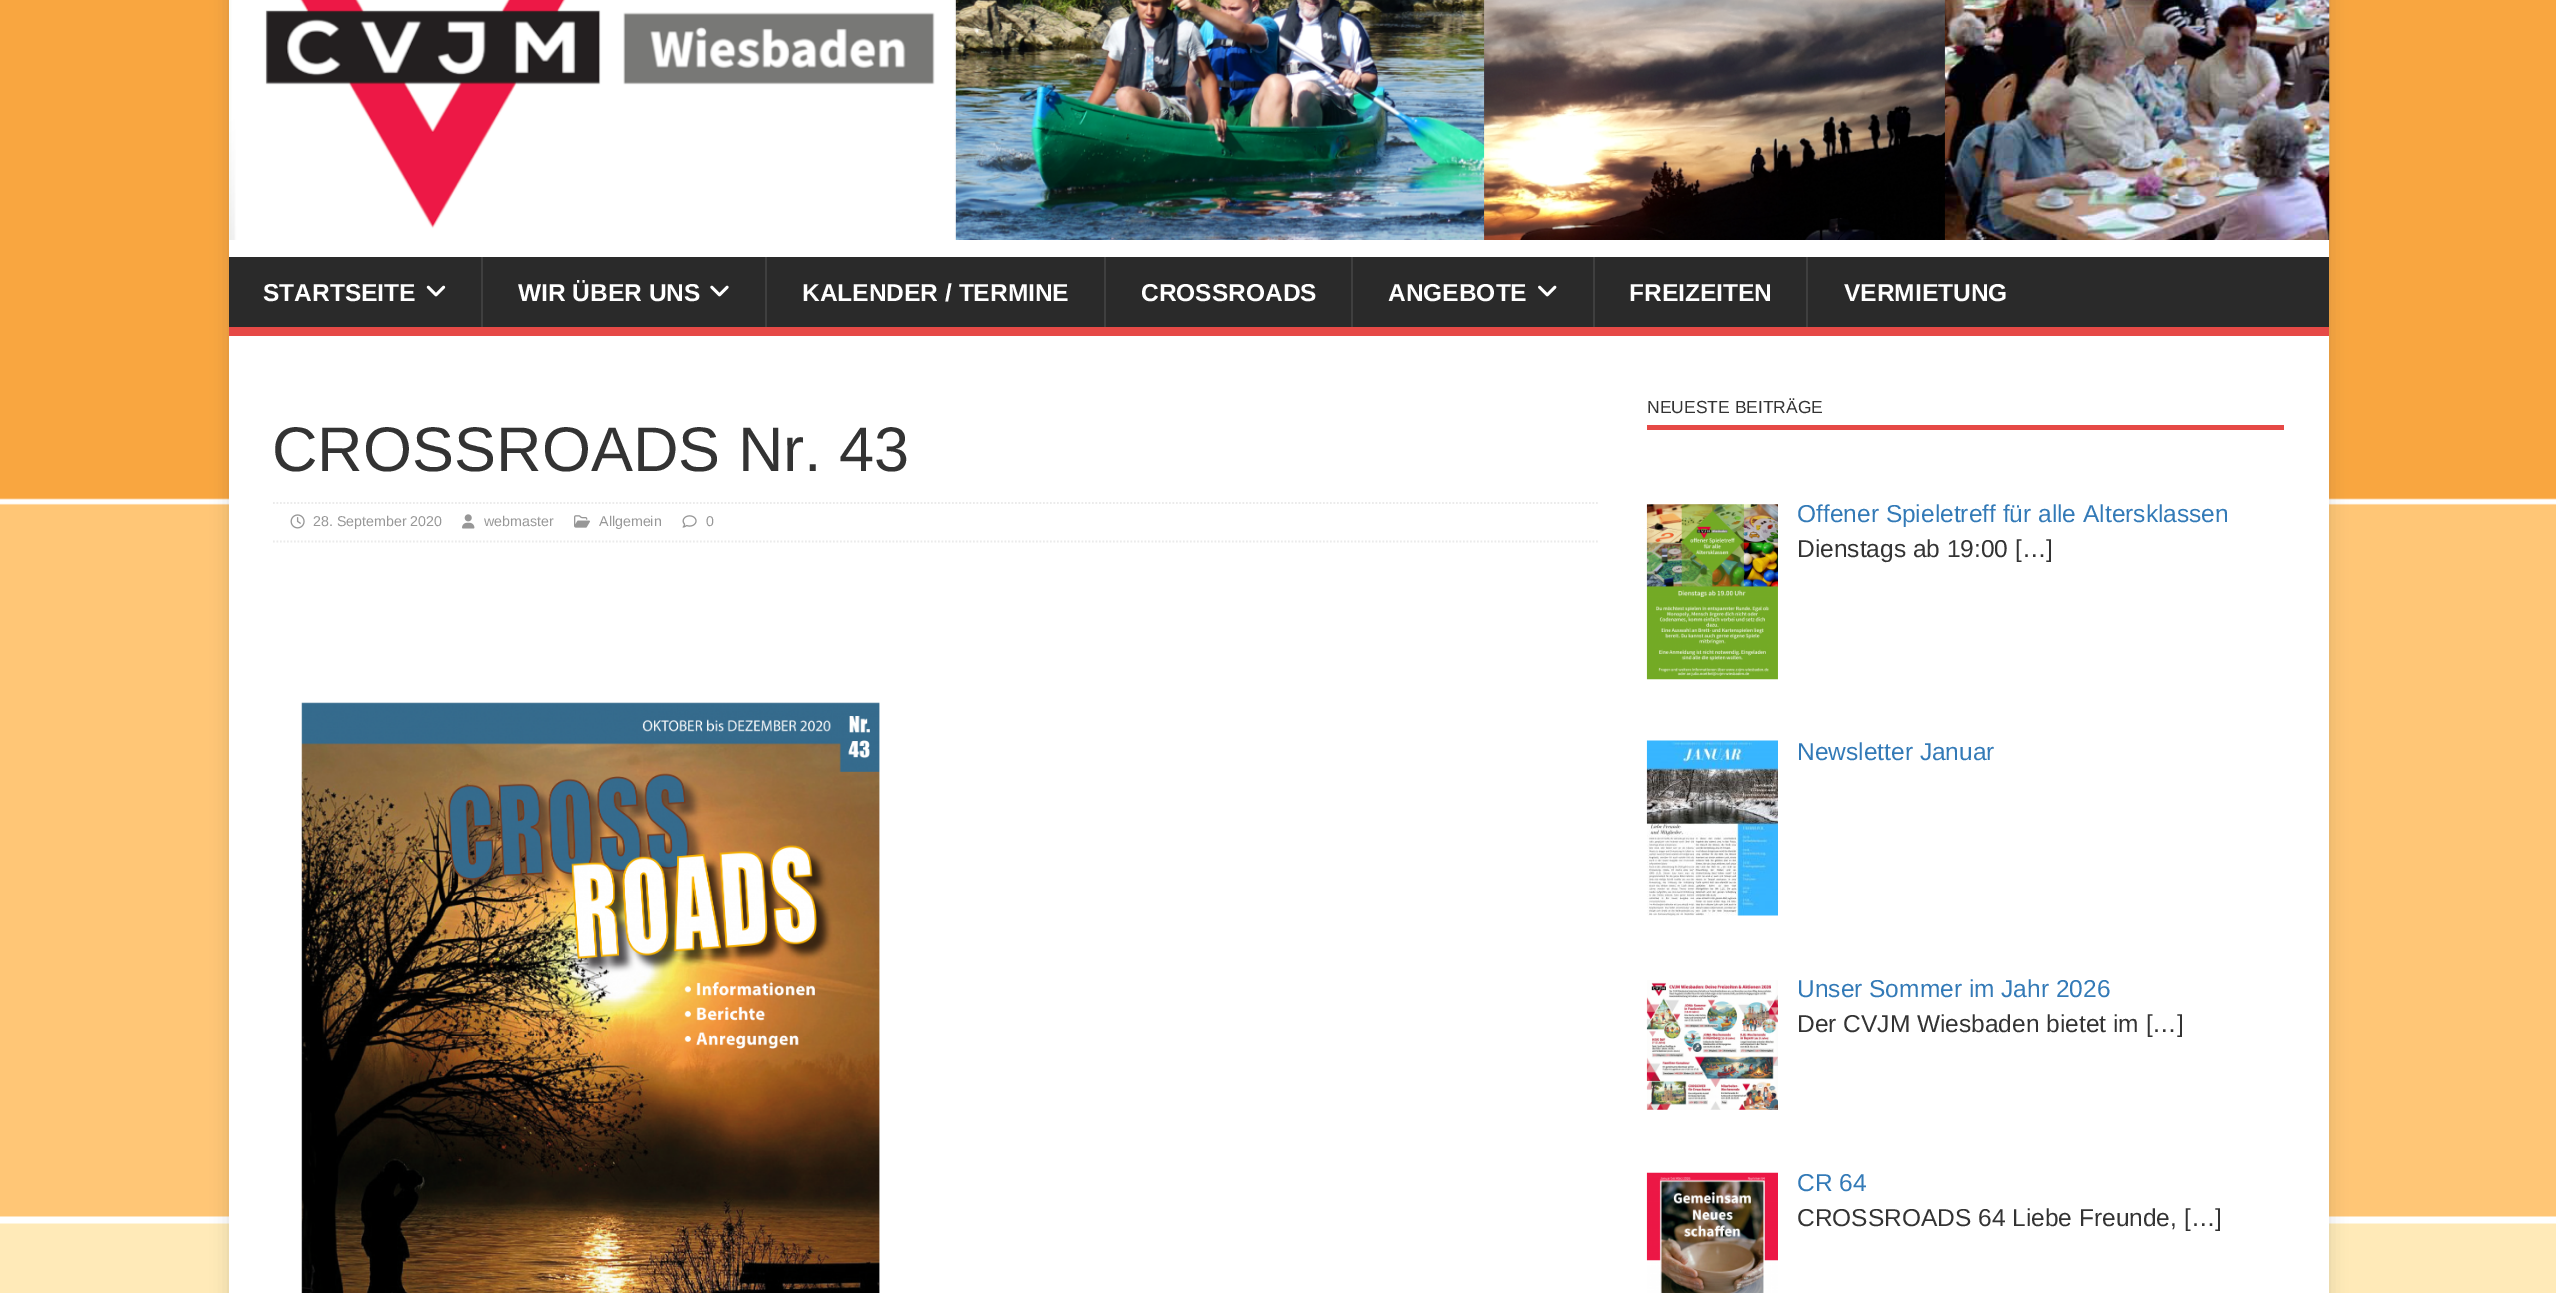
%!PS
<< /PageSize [2556 1293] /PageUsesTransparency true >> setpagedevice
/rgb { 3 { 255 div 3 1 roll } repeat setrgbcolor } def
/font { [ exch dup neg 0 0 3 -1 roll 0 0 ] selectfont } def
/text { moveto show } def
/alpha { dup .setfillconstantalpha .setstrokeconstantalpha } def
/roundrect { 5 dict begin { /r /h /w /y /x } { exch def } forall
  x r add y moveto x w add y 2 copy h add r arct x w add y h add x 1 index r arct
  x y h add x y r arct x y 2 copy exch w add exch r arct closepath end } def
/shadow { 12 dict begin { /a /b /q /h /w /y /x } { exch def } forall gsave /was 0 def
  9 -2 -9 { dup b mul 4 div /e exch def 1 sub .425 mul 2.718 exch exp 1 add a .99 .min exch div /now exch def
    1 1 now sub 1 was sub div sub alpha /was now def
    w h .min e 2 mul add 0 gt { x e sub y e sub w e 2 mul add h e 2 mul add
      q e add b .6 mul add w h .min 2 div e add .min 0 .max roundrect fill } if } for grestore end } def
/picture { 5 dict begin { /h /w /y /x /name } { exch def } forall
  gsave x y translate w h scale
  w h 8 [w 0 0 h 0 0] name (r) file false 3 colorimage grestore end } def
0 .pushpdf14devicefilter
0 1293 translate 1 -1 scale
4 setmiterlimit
255 255 255 rgb
0 0 2556 1293 rectfill
(img_01.rgb) 0 0 2556 1293 picture
50 50 50 rgb
229 -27 2100 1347 0 9 0.17 shadow
255 255 255 rgb
229 0 2100 257 rectfill
(img_02.rgb) 229 0 2101 240 picture
42 42 42 rgb
229 257 2100 70 rectfill
230 73 70 rgb
229 327 2100 9 rectfill
(img_03.rgb) 426 285 20 12 picture
63 63 63 rgb
481 257 2 70 rectfill
(img_04.rgb) 710 285 19 12 picture
765 257 2 70 rectfill
1104 257 2 70 rectfill
1351 257 2 70 rectfill
(img_05.rgb) 1538 285 19 12 picture
1593 257 2 70 rectfill
1806 257 2 70 rectfill
255 255 255 rgb
229 336 2100 957 rectfill
235 235 235 rgb
1.8 setlinewidth
[1.75 1.75] 0 setdash
273 503 moveto 1325 0 rlineto stroke
273 541.5 moveto 1325 0 rlineto stroke
(img_06.rgb) 290 514 15 15 picture
(img_07.rgb) 462 514 13 15 picture
(img_08.rgb) 574 515 16 13 picture
(img_09.rgb) 682 515 15 13 picture
(img_10.rgb) 301 702 579 591 picture
230 73 70 rgb
1647 425 637 5 rectfill
(img_11.rgb) 1646 504 132 176 picture
(img_12.rgb) 1646 740 132 176 picture
(img_13.rgb) 1646 980 132 130 picture
(img_14.rgb) 1646 1172 132 121 picture
/LiberationSans-Bold 24.5 font
255 255 255 rgb
(STARTSEITE) 263 301 text
(WIR ÜBER UNS) 518 301 text
(KALENDER / TERMINE) 802 301 text
(CROSSROADS) 1141 301 text
(ANGEBOTE) 1388 301 text
(FREIZEITEN) 1629 301 text
(VERMIETUNG) 1844 301 text
/LiberationSans-Regular 63 font
51 51 51 rgb
(CROSSROADS Nr. 43) 272 471 text
/LiberationSans-Regular 14.25 font
151 151 151 rgb
(28. September 2020) 313 526 text
(webmaster) 484 526 text
(Allgemein) 599 526 text
(0) 706 526 text
/LiberationSans-Regular 17.5 font
51 51 51 rgb
(NEUESTE BEITRÄGE) 1647 413 text
/LiberationSans-Regular 24.5 font
51 122 183 rgb
(Offener Spieletreff für alle Altersklassen) 1797 522 text
51 51 51 rgb
(Dienstags ab 19:00 […]) 1797 557 text
51 122 183 rgb
(Newsletter Januar) 1797 760 text
(Unser Sommer im Jahr 2026) 1797 997 text
51 51 51 rgb
(Der CVJM Wiesbaden bietet im […]) 1797 1032 text
51 122 183 rgb
(CR 64) 1797 1191 text
51 51 51 rgb
(CROSSROADS 64 Liebe Freunde, […]) 1797 1226 text
.poppdf14devicefilter showpage
